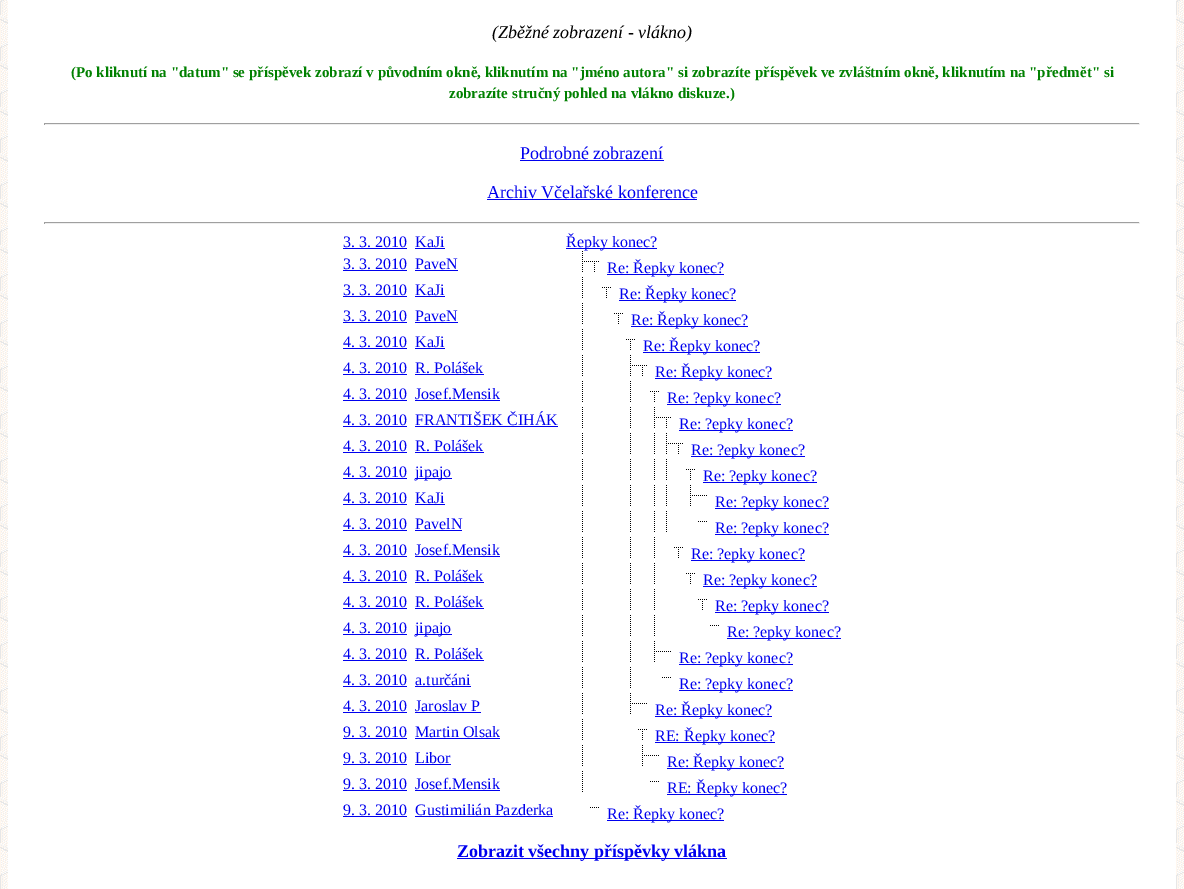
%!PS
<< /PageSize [1184 889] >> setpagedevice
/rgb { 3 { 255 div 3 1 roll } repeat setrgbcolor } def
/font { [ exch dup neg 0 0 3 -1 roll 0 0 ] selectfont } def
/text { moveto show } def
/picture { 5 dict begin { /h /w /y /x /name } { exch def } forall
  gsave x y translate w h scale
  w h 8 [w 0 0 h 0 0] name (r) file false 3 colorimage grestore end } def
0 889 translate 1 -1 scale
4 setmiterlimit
255 255 255 rgb
0 0 1184 889 rectfill
(img_01.rgb) 0 0 1184 889 picture
8 0 1168 889 rectfill
159 159 159 rgb
44 123 1096 1 rectfill
238 238 238 rgb
1139 123 1 2 rectfill
44 124 1096 1 rectfill
159 159 159 rgb
44 123 1 2 rectfill
0 0 238 rgb
520 160 144 1 rectfill
487 199 210 1 rectfill
159 159 159 rgb
44 222 1096 1 rectfill
238 238 238 rgb
1139 222 1 2 rectfill
44 223 1096 1 rectfill
159 159 159 rgb
44 222 1 2 rectfill
0 0 238 rgb
343 248 64 1 rectfill
415 248 30 1 rectfill
566 248 91 1 rectfill
343 270 64 1 rectfill
415 270 43 1 rectfill
(img_02.rgb) 582 251 7 21 picture
(img_03.rgb) 590 261 9 11 picture
607 274 117 1 rectfill
343 296 64 1 rectfill
415 296 30 1 rectfill
(img_04.rgb) 582 277 1 21 picture
(img_03.rgb) 602 287 9 11 picture
619 300 117 1 rectfill
343 322 64 1 rectfill
415 322 43 1 rectfill
(img_04.rgb) 582 303 1 21 picture
(img_03.rgb) 614 313 9 11 picture
631 326 117 1 rectfill
343 348 64 1 rectfill
415 348 30 1 rectfill
(img_04.rgb) 582 329 1 21 picture
(img_03.rgb) 626 339 9 11 picture
643 352 117 1 rectfill
343 374 64 1 rectfill
415 374 69 1 rectfill
(img_04.rgb) 582 355 1 21 picture
(img_02.rgb) 630 355 7 21 picture
(img_03.rgb) 638 365 9 11 picture
655 378 117 1 rectfill
343 400 64 1 rectfill
415 400 85 1 rectfill
(img_04.rgb) 582 381 1 21 picture
(img_04.rgb) 630 381 1 21 picture
(img_03.rgb) 650 391 9 11 picture
667 404 114 1 rectfill
343 426 64 1 rectfill
415 426 143 1 rectfill
(img_04.rgb) 582 407 1 21 picture
(img_04.rgb) 630 407 1 21 picture
(img_02.rgb) 654 407 7 21 picture
(img_03.rgb) 662 417 9 11 picture
679 430 114 1 rectfill
343 452 64 1 rectfill
415 452 69 1 rectfill
(img_04.rgb) 582 433 1 21 picture
(img_04.rgb) 630 433 1 21 picture
(img_04.rgb) 654 433 1 21 picture
(img_02.rgb) 666 433 7 21 picture
(img_03.rgb) 674 443 9 11 picture
691 456 114 1 rectfill
343 478 64 1 rectfill
415 478 37 1 rectfill
(img_04.rgb) 582 459 1 21 picture
(img_04.rgb) 630 459 1 21 picture
(img_04.rgb) 654 459 1 21 picture
(img_04.rgb) 666 459 1 21 picture
(img_03.rgb) 686 469 9 11 picture
703 482 114 1 rectfill
343 504 64 1 rectfill
415 504 30 1 rectfill
(img_04.rgb) 582 485 1 21 picture
(img_04.rgb) 630 485 1 21 picture
(img_04.rgb) 654 485 1 21 picture
(img_04.rgb) 666 485 1 21 picture
(img_02.rgb) 690 485 7 21 picture
(img_05.rgb) 698 495 9 1 picture
715 508 114 1 rectfill
343 530 64 1 rectfill
415 530 47 1 rectfill
(img_04.rgb) 582 511 1 21 picture
(img_04.rgb) 630 511 1 21 picture
(img_04.rgb) 654 511 1 21 picture
(img_04.rgb) 666 511 1 21 picture
(img_05.rgb) 698 521 9 1 picture
715 534 114 1 rectfill
343 556 64 1 rectfill
415 556 85 1 rectfill
(img_04.rgb) 582 537 1 21 picture
(img_04.rgb) 630 537 1 21 picture
(img_04.rgb) 654 537 1 21 picture
(img_03.rgb) 674 547 9 11 picture
691 560 114 1 rectfill
343 582 64 1 rectfill
415 582 69 1 rectfill
(img_04.rgb) 582 563 1 21 picture
(img_04.rgb) 630 563 1 21 picture
(img_04.rgb) 654 563 1 21 picture
(img_03.rgb) 686 573 9 11 picture
703 586 114 1 rectfill
343 608 64 1 rectfill
415 608 69 1 rectfill
(img_04.rgb) 582 589 1 21 picture
(img_04.rgb) 630 589 1 21 picture
(img_04.rgb) 654 589 1 21 picture
(img_03.rgb) 698 599 9 11 picture
715 612 114 1 rectfill
343 634 64 1 rectfill
415 634 37 1 rectfill
(img_04.rgb) 582 615 1 21 picture
(img_04.rgb) 630 615 1 21 picture
(img_04.rgb) 654 615 1 21 picture
(img_05.rgb) 710 625 9 1 picture
727 638 114 1 rectfill
343 660 64 1 rectfill
415 660 69 1 rectfill
(img_04.rgb) 582 641 1 21 picture
(img_04.rgb) 630 641 1 21 picture
(img_02.rgb) 654 641 7 21 picture
(img_05.rgb) 662 651 9 1 picture
679 664 114 1 rectfill
343 686 64 1 rectfill
415 686 56 1 rectfill
(img_04.rgb) 582 667 1 21 picture
(img_04.rgb) 630 667 1 21 picture
(img_05.rgb) 662 677 9 1 picture
679 690 114 1 rectfill
343 712 64 1 rectfill
415 712 66 1 rectfill
(img_04.rgb) 582 693 1 21 picture
(img_02.rgb) 630 693 7 21 picture
(img_05.rgb) 638 703 9 1 picture
655 716 117 1 rectfill
343 738 64 1 rectfill
415 738 85 1 rectfill
(img_04.rgb) 582 719 1 21 picture
(img_03.rgb) 638 729 9 11 picture
655 742 120 1 rectfill
343 764 64 1 rectfill
415 764 36 1 rectfill
(img_04.rgb) 582 745 1 21 picture
(img_02.rgb) 642 745 7 21 picture
(img_05.rgb) 650 755 9 1 picture
667 768 117 1 rectfill
343 790 64 1 rectfill
415 790 85 1 rectfill
(img_04.rgb) 582 771 1 21 picture
(img_05.rgb) 650 781 9 1 picture
667 794 120 1 rectfill
343 816 64 1 rectfill
415 816 138 1 rectfill
(img_05.rgb) 590 807 9 1 picture
607 820 117 1 rectfill
457 858 270 1 rectfill
/LiberationSerif-Italic 18 font
0 0 0 rgb
(\(Zběžné zobrazení - vlákno\)) 492 38 text
/LiberationSerif-Bold 15 font
0 128 0 rgb
(\(Po kliknutí na "datum" se příspěvek zobrazí v původním okně, kliknutím na "jméno autora" si zobrazíte příspěvek ve zvláštním okně, kliknutím na "předmět" si) 71 77 text
(zobrazíte stručný pohled na vlákno diskuze.\)) 449 98 text
/LiberationSerif-Regular 18 font
0 0 238 rgb
(Podrobné zobrazení) 520 159 text
(Archiv Včelařské konference) 487 198 text
/LiberationSerif-Regular 16 font
(3. 3. 2010) 343 247 text
(KaJi) 415 247 text
(Řepky konec?) 566 247 text
(3. 3. 2010) 343 269 text
(PaveN) 415 269 text
(Re: Řepky konec?) 607 273 text
(3. 3. 2010) 343 295 text
(KaJi) 415 295 text
(Re: Řepky konec?) 619 299 text
(3. 3. 2010) 343 321 text
(PaveN) 415 321 text
(Re: Řepky konec?) 631 325 text
(4. 3. 2010) 343 347 text
(KaJi) 415 347 text
(Re: Řepky konec?) 643 351 text
(4. 3. 2010) 343 373 text
(R. Polášek) 415 373 text
(Re: Řepky konec?) 655 377 text
(4. 3. 2010) 343 399 text
(Josef.Mensik) 415 399 text
(Re: ?epky konec?) 667 403 text
(4. 3. 2010) 343 425 text
(FRANTIŠEK ČIHÁK) 415 425 text
(Re: ?epky konec?) 679 429 text
(4. 3. 2010) 343 451 text
(R. Polášek) 415 451 text
(Re: ?epky konec?) 691 455 text
(4. 3. 2010) 343 477 text
(jipajo) 415 477 text
(Re: ?epky konec?) 703 481 text
(4. 3. 2010) 343 503 text
(KaJi) 415 503 text
(Re: ?epky konec?) 715 507 text
(4. 3. 2010) 343 529 text
(PavelN) 415 529 text
(Re: ?epky konec?) 715 533 text
(4. 3. 2010) 343 555 text
(Josef.Mensik) 415 555 text
(Re: ?epky konec?) 691 559 text
(4. 3. 2010) 343 581 text
(R. Polášek) 415 581 text
(Re: ?epky konec?) 703 585 text
(4. 3. 2010) 343 607 text
(R. Polášek) 415 607 text
(Re: ?epky konec?) 715 611 text
(4. 3. 2010) 343 633 text
(jipajo) 415 633 text
(Re: ?epky konec?) 727 637 text
(4. 3. 2010) 343 659 text
(R. Polášek) 415 659 text
(Re: ?epky konec?) 679 663 text
(4. 3. 2010) 343 685 text
(a.turčáni) 415 685 text
(Re: ?epky konec?) 679 689 text
(4. 3. 2010) 343 711 text
(Jaroslav P) 415 711 text
(Re: Řepky konec?) 655 715 text
(9. 3. 2010) 343 737 text
(Martin Olsak) 415 737 text
(RE: Řepky konec?) 655 741 text
(9. 3. 2010) 343 763 text
(Libor) 415 763 text
(Re: Řepky konec?) 667 767 text
(9. 3. 2010) 343 789 text
(Josef.Mensik) 415 789 text
(RE: Řepky konec?) 667 793 text
(9. 3. 2010) 343 815 text
(Gustimilián Pazderka) 415 815 text
(Re: Řepky konec?) 607 819 text
/LiberationSerif-Bold 18 font
(Zobrazit všechny příspěvky vlákna) 457 857 text
showpage
